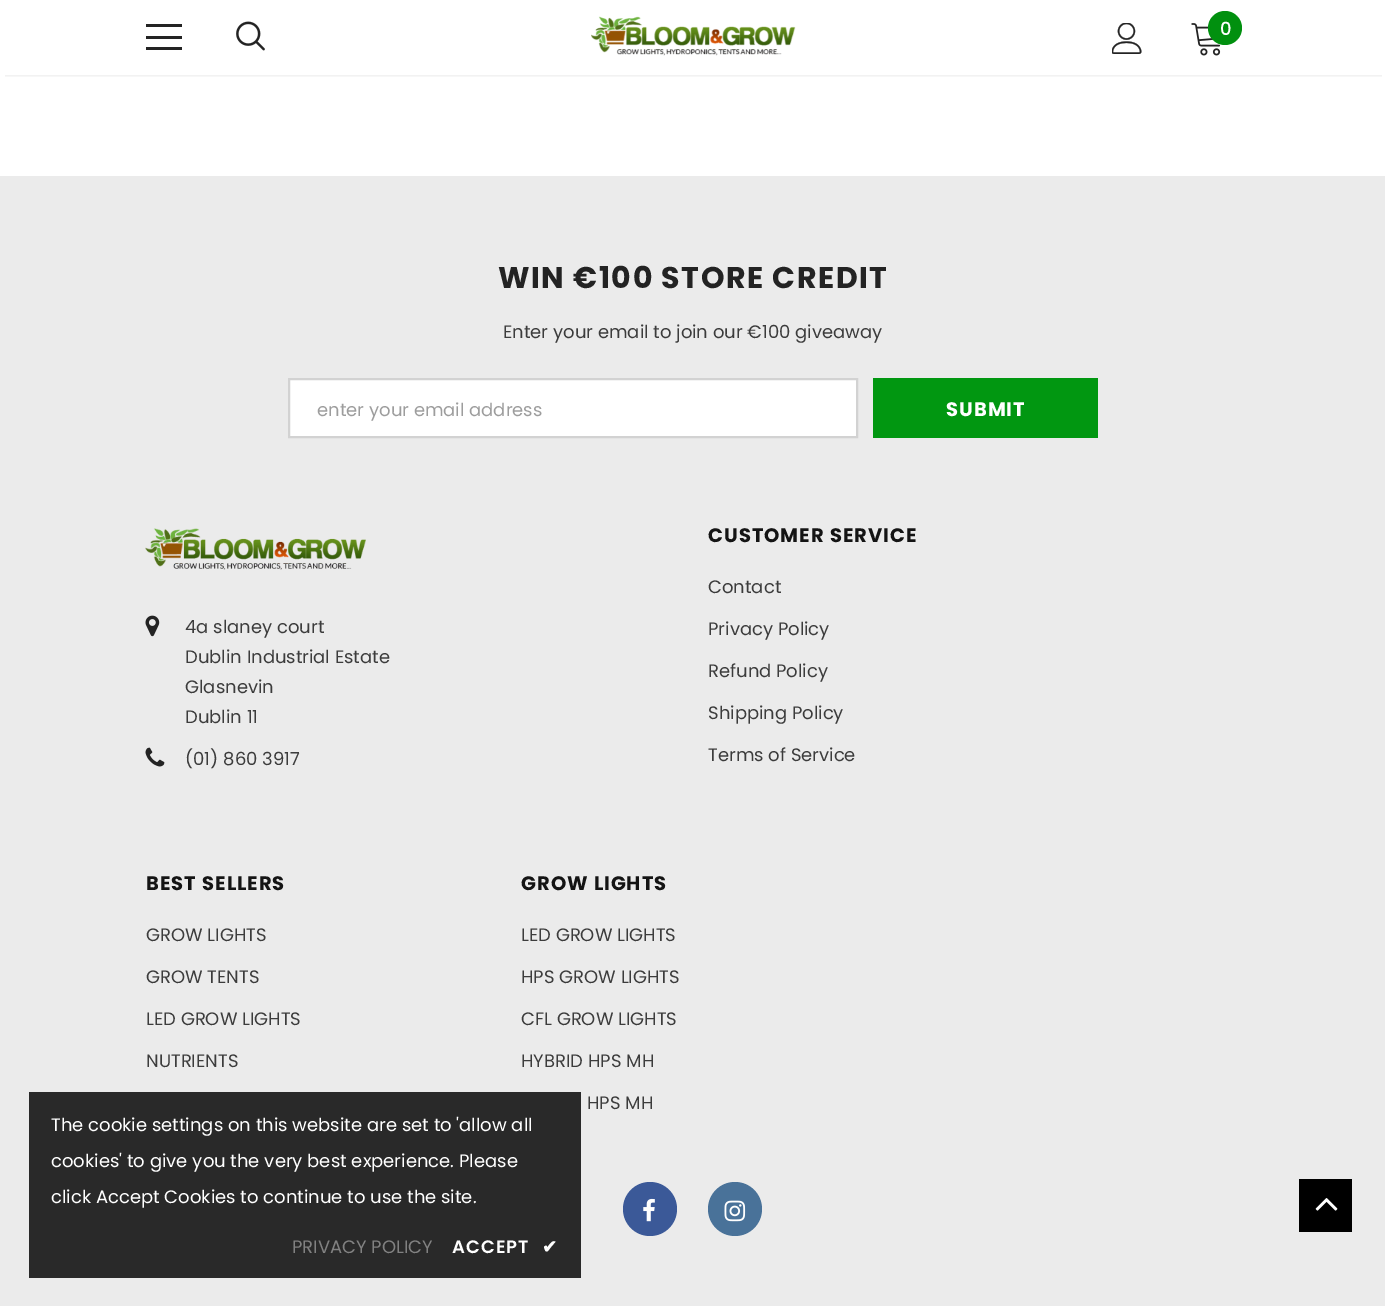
%!PS
<< /PageSize [1385 1306] /PageUsesTransparency true >> setpagedevice
/rgb { 3 { 255 div 3 1 roll } repeat setrgbcolor } def
/font { [ exch dup neg 0 0 3 -1 roll 0 0 ] selectfont } def
/text { moveto show } def
/alpha { dup .setfillconstantalpha .setstrokeconstantalpha } def
/circle { newpath 0 360 arc closepath } def
/roundrect { 5 dict begin { /r /h /w /y /x } { exch def } forall
  x r add y moveto x w add y 2 copy h add r arct x w add y h add x 1 index r arct
  x y h add x y r arct x y 2 copy exch w add exch r arct closepath end } def
/shadow { 12 dict begin { /a /b /q /h /w /y /x } { exch def } forall gsave /was 0 def
  9 -2 -9 { dup b mul 4 div /e exch def 1 sub .425 mul 2.718 exch exp 1 add a .99 .min exch div /now exch def
    1 1 now sub 1 was sub div sub alpha /was now def
    w h .min e 2 mul add 0 gt { x e sub y e sub w e 2 mul add h e 2 mul add
      q e add b .6 mul add w h .min 2 div e add .min 0 .max roundrect fill } if } for grestore end } def
/picture { 5 dict begin { /h /w /y /x /name } { exch def } forall
  gsave x y translate w h scale
  w h 8 [w 0 0 h 0 0] name (r) file false 3 colorimage grestore end } def
0 .pushpdf14devicefilter
0 1306 translate 1 -1 scale
4 setmiterlimit
255 255 255 rgb
0 0 1385 1306 rectfill
gsave
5 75 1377 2 rectclip
0 0 0 rgb
5 9 1377 66 0 2 0.12 shadow
grestore
35 35 35 rgb
146 24 36 3 rectfill
146 36 36 3 rectfill
146 47 36 3 rectfill
(img_01.rgb) 236 21 29 30 picture
(img_02.rgb) 591 16 205 40 picture
(img_03.rgb) 1112 23 30 31 picture
(img_04.rgb) 1191 23 30 33 picture
1 144 15 rgb
1225 28 17 circle fill
235 235 235 rgb
0 176 1385 1130 rectfill
255 255 255 rgb
289 379 moveto 568 0 rlineto 0 58 rlineto -568 0 rlineto closepath gsave fill grestore
210 210 210 rgb
2 setlinewidth
stroke
1 151 17 rgb
873 378 225 60 rectfill
(img_05.rgb) 145 528 221 42 picture
(img_06.rgb) 145 615 15 22 picture
(img_07.rgb) 145 747 20 20 picture
59 89 152 rgb
650 1209 27 circle fill
(img_08.rgb) 643 1198 12 24 picture
73 114 153 rgb
735 1209 27 circle fill
(img_09.rgb) 724 1200 22 22 picture
0.9 alpha
20 20 20 rgb
29 1092 552 186 rectfill
1 alpha
0 0 0 rgb
1299 1179 53 53 rectfill
(img_10.rgb) 1315 1198 23 13 picture
/Poppins-Medium 18 font
255 255 255 rgb
(0) 1220 35 text
/Poppins-Bold 30 font
35 35 35 rgb
498 288 moveto 1.5 0 (WIN €100 STORE CREDIT) ashow
/Poppins-Regular 18 font
60 60 60 rgb
(Enter your email to join our €100 giveaway) 503 338 text
157 157 157 rgb
(enter your email address) 317 416 text
/Poppins-Bold 19.5 font
255 255 255 rgb
946 416 moveto 1 0 (SUBMIT) ashow
/Poppins-Regular 18 font
60 60 60 rgb
(4a slaney court) 185 633 text
(Dublin Industrial Estate) 185 663 text
(Glasnevin) 185 693 text
(Dublin 11) 185 723 text
(\(01\) 860 3917) 185 765 text
/Poppins-Bold 19.5 font
20 20 20 rgb
708 542 moveto 1 0 (CUSTOMER SERVICE) ashow
/Poppins-Regular 18 font
60 60 60 rgb
(Contact) 708 593 text
(Privacy Policy) 708 635 text
(Refund Policy) 708 677 text
(Shipping Policy) 708 719 text
(Terms of Service) 708 761 text
/Poppins-Bold 19.5 font
20 20 20 rgb
146 890 moveto 1 0 (BEST SELLERS) ashow
/Poppins-Regular 18 font
60 60 60 rgb
(GROW LIGHTS) 146 941 text
(GROW TENTS) 146 983 text
(LED GROW LIGHTS) 146 1025 text
(NUTRIENTS) 146 1067 text
/Poppins-Bold 19.5 font
20 20 20 rgb
521 890 moveto 1 0 (GROW LIGHTS) ashow
/Poppins-Regular 18 font
60 60 60 rgb
(LED GROW LIGHTS) 521 941 text
(HPS GROW LIGHTS) 521 983 text
(CFL GROW LIGHTS) 521 1025 text
(HYBRID HPS MH) 521 1067 text
(HPS MH) 587 1109 text
255 255 255 rgb
(The cookie settings on this website are set to 'allow all) 51 1131 text
(cookies' to give you the very best experience. Please) 51 1167 text
(click Accept Cookies to continue to use the site.) 51 1203 text
129 129 129 rgb
(PRIVACY POLICY) 292 1253 text
/Poppins-SemiBold 18 font
255 255 255 rgb
452 1253 moveto 1 0 (ACCEPT) ashow
/DejaVuSans-Bold 18 font
542 1253 moveto 1 0 (✔) ashow
.poppdf14devicefilter showpage
